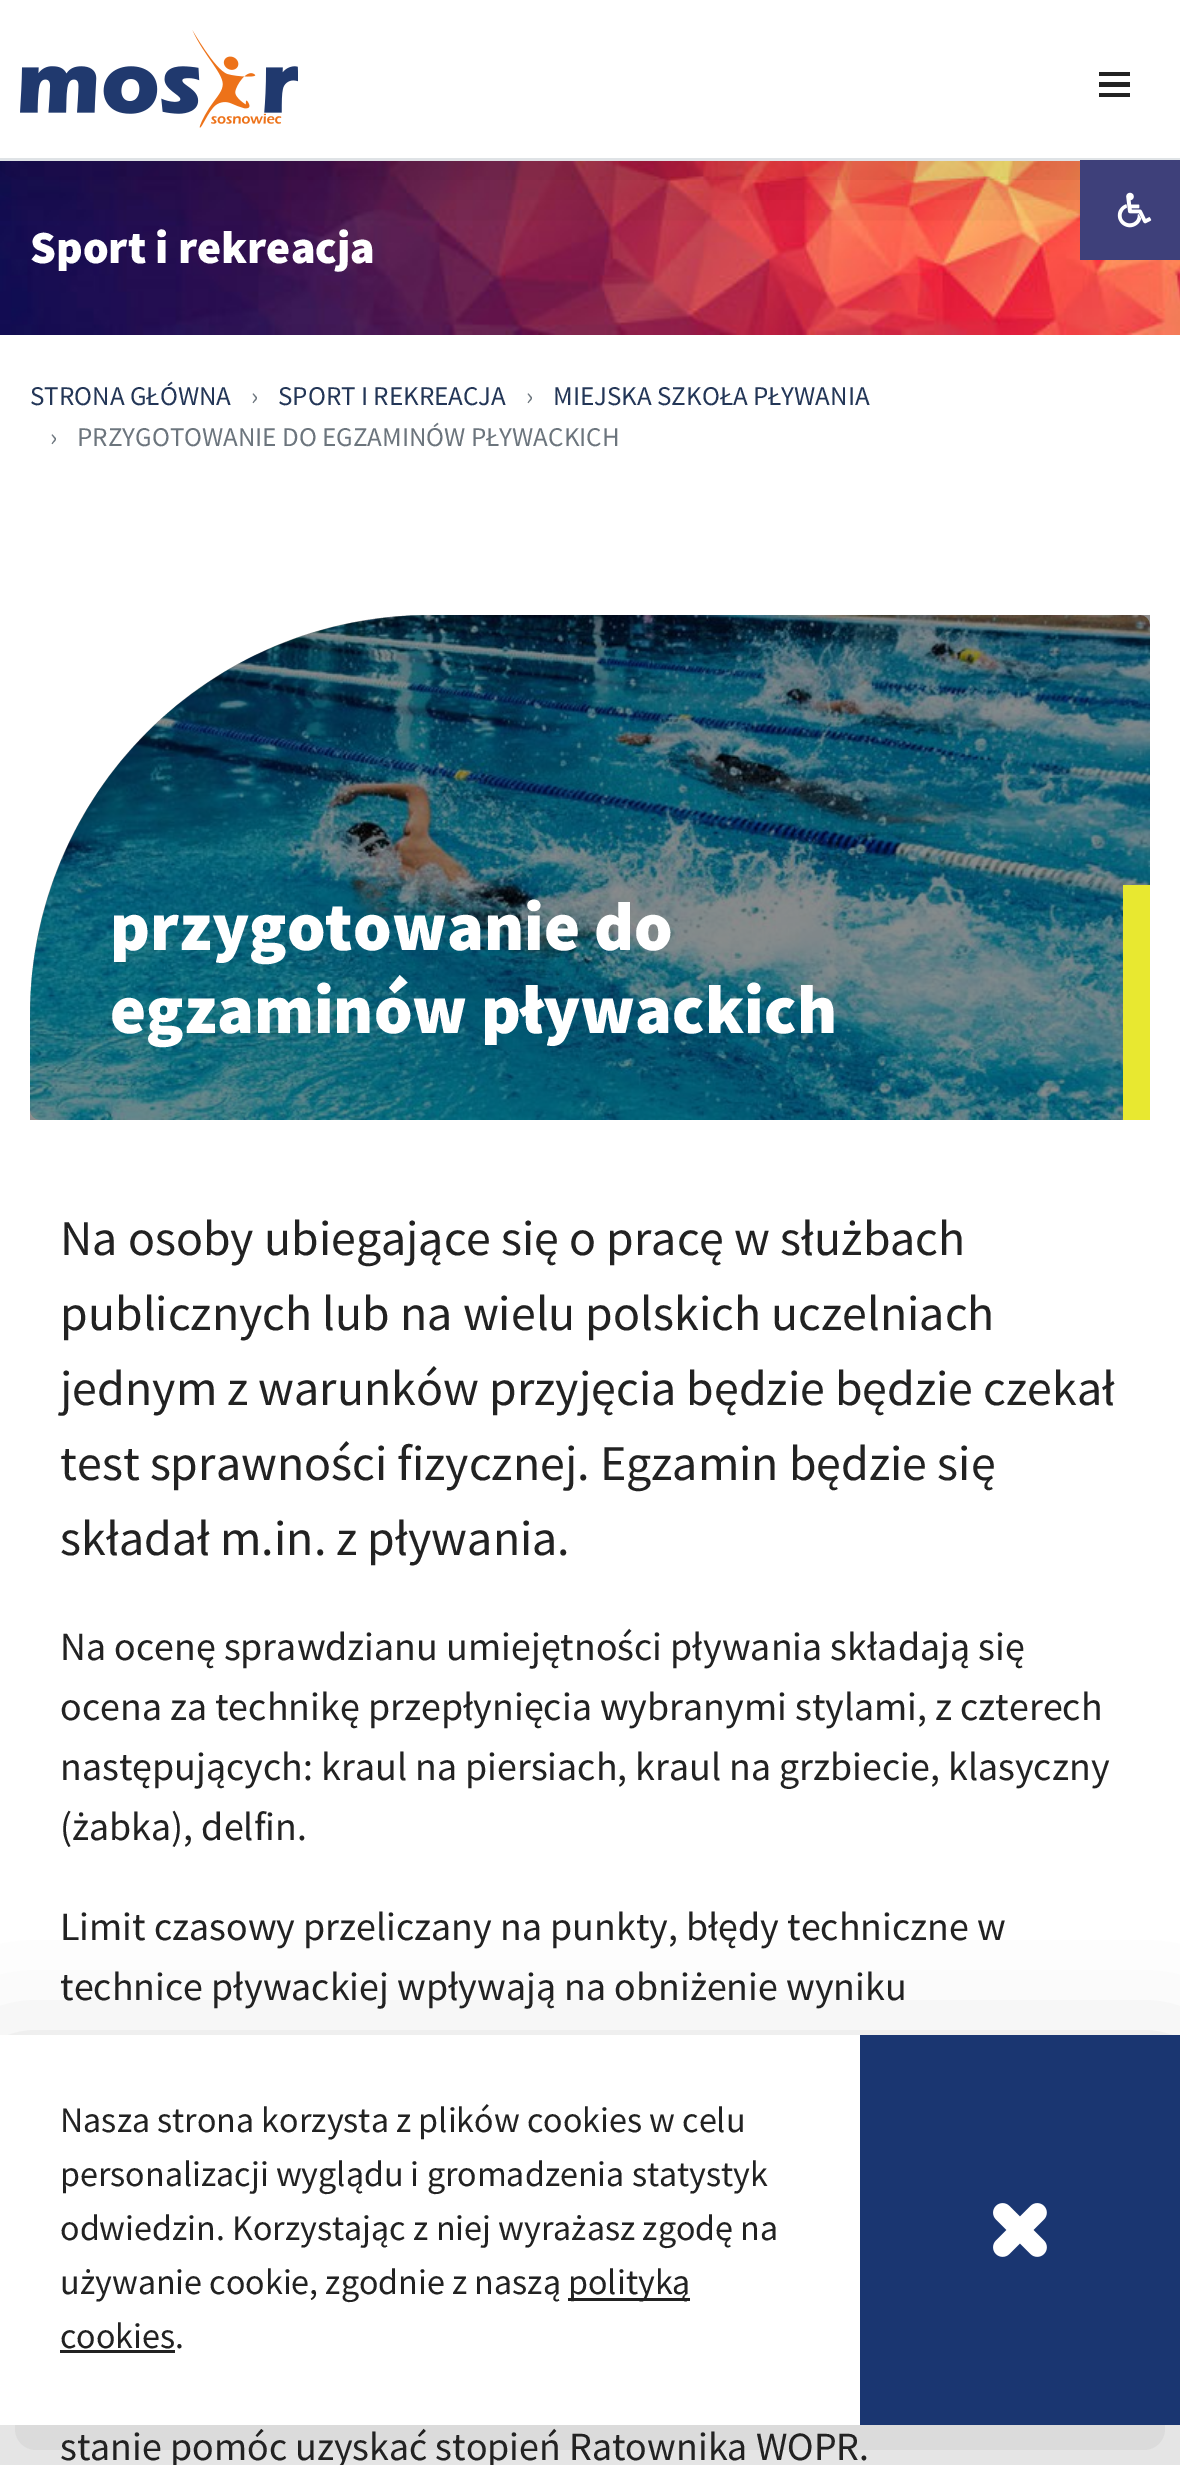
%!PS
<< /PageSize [1180 2465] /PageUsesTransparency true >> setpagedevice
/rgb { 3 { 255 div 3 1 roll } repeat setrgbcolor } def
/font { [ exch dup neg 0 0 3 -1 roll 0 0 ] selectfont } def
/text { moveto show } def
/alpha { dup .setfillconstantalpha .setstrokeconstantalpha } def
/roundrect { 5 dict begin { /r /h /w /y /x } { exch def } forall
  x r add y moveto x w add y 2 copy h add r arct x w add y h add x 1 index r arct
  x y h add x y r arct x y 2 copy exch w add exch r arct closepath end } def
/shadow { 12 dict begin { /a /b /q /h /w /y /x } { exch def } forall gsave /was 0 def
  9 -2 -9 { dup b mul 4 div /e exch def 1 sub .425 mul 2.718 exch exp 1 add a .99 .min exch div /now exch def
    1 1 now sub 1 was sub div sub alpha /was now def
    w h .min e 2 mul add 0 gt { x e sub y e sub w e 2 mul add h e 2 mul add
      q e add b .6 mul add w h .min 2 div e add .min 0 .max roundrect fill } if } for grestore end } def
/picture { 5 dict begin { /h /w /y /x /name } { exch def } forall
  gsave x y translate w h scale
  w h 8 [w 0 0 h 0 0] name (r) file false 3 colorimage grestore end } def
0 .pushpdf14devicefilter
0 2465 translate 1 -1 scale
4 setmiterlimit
255 255 255 rgb
0 0 1180 2465 rectfill
(img_03.rgb) 0 161 1180 174 picture
gsave
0 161 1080 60 rectclip
0 0 0 rgb
0 10 1180 160 0 40 0.2 shadow
grestore
223 227 230 rgb
0 158 1180 3 rectfill
(img_01.rgb) 20 30 278 98 picture
34 34 34 rgb
1099 82 31 5 rectfill
1099 93 31 4 rectfill
1099 72 31 4 rectfill
62 64 122 rgb
1080 160 100 100 rectfill
(img_02.rgb) 1117 192 35 36 picture
(img_04.rgb) 30 615 1120 505 picture
0.45 alpha
0 0 0 rgb
430 615 moveto 720 0 rlineto 0 505 rlineto -1120 0 rlineto 0 -105 rlineto 0 -221 179 -400 400 -400 rcurveto closepath fill
1 alpha
232 232 48 rgb
1123 885 27 235 rectfill
0 0 0 rgb
0 2075 1180 390 0 60 0.2 shadow
255 255 255 rgb
0 2035 860 390 rectfill
34 34 34 rgb
568 2298 122 3 rectfill
60 2350 115 3 rectfill
26 54 113 rgb
860 2035 320 390 rectfill
(img_05.rgb) 993 2203 54 54 picture
/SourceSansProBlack-Black 46 font
255 255 255 rgb
(Sport i rekreacja) 30 263 text
/SourceSansPro-Regular 27 font
35 54 87 rgb
(STRONA GŁÓWNA) 30 405 text
108 117 125 rgb
(›) 251 405 text
35 54 87 rgb
(SPORT I REKREACJA) 278 405 text
108 117 125 rgb
(›) 526 405 text
35 54 87 rgb
(MIEJSKA SZKOŁA PŁYWANIA) 553 405 text
108 117 125 rgb
(›) 50 446 text
(PRZYGOTOWANIE DO EGZAMINÓW PŁYWACKICH) 77 446 text
/SourceSansProBlack-Black 69 font
255 255 255 rgb
(przygotowanie do) 110 950 text
(egzaminów pływackich) 110 1033 text
/SourceSansPro-Regular 50 font
34 34 34 rgb
(Na osoby ubiegające się o pracę w służbach) 60 1255 text
(publicznych lub na wielu polskich uczelniach) 60 1330 text
(jednym z warunków przyjęcia będzie będzie czekał) 60 1405 text
(test sprawności fizycznej. Egzamin będzie się) 60 1480 text
(składał m.in. z pływania.) 60 1555 text
/SourceSansPro-Regular 40 font
(Na ocenę sprawdzianu umiejętności pływania składają się) 60 1660 text
(ocena za technikę przepłynięcia wybranymi stylami, z czterech) 60 1720 text
(następujących: kraul na piersiach, kraul na grzbiecie, klasyczny) 60 1780 text
(\(żabka\), delfin.) 60 1840 text
(Limit czasowy przeliczany na punkty, błędy techniczne w) 60 1940 text
(technice pływackiej wpływają na obniżenie wyniku) 60 2000 text
(stanie pomóc uzyskać stopień Ratownika WOPR.) 60 2460 text
/SourceSansPro-Regular 36 font
(Nasza strona korzysta z plików cookies w celu) 60 2132 text
(personalizacji wyglądu i gromadzenia statystyk) 60 2186 text
(odwiedzin. Korzystając z niej wyrażasz zgodę na) 60 2240 text
(używanie cookie, zgodnie z naszą) 60 2294 text
(polityką) 568 2294 text
(cookies.) 60 2348 text
.poppdf14devicefilter showpage
